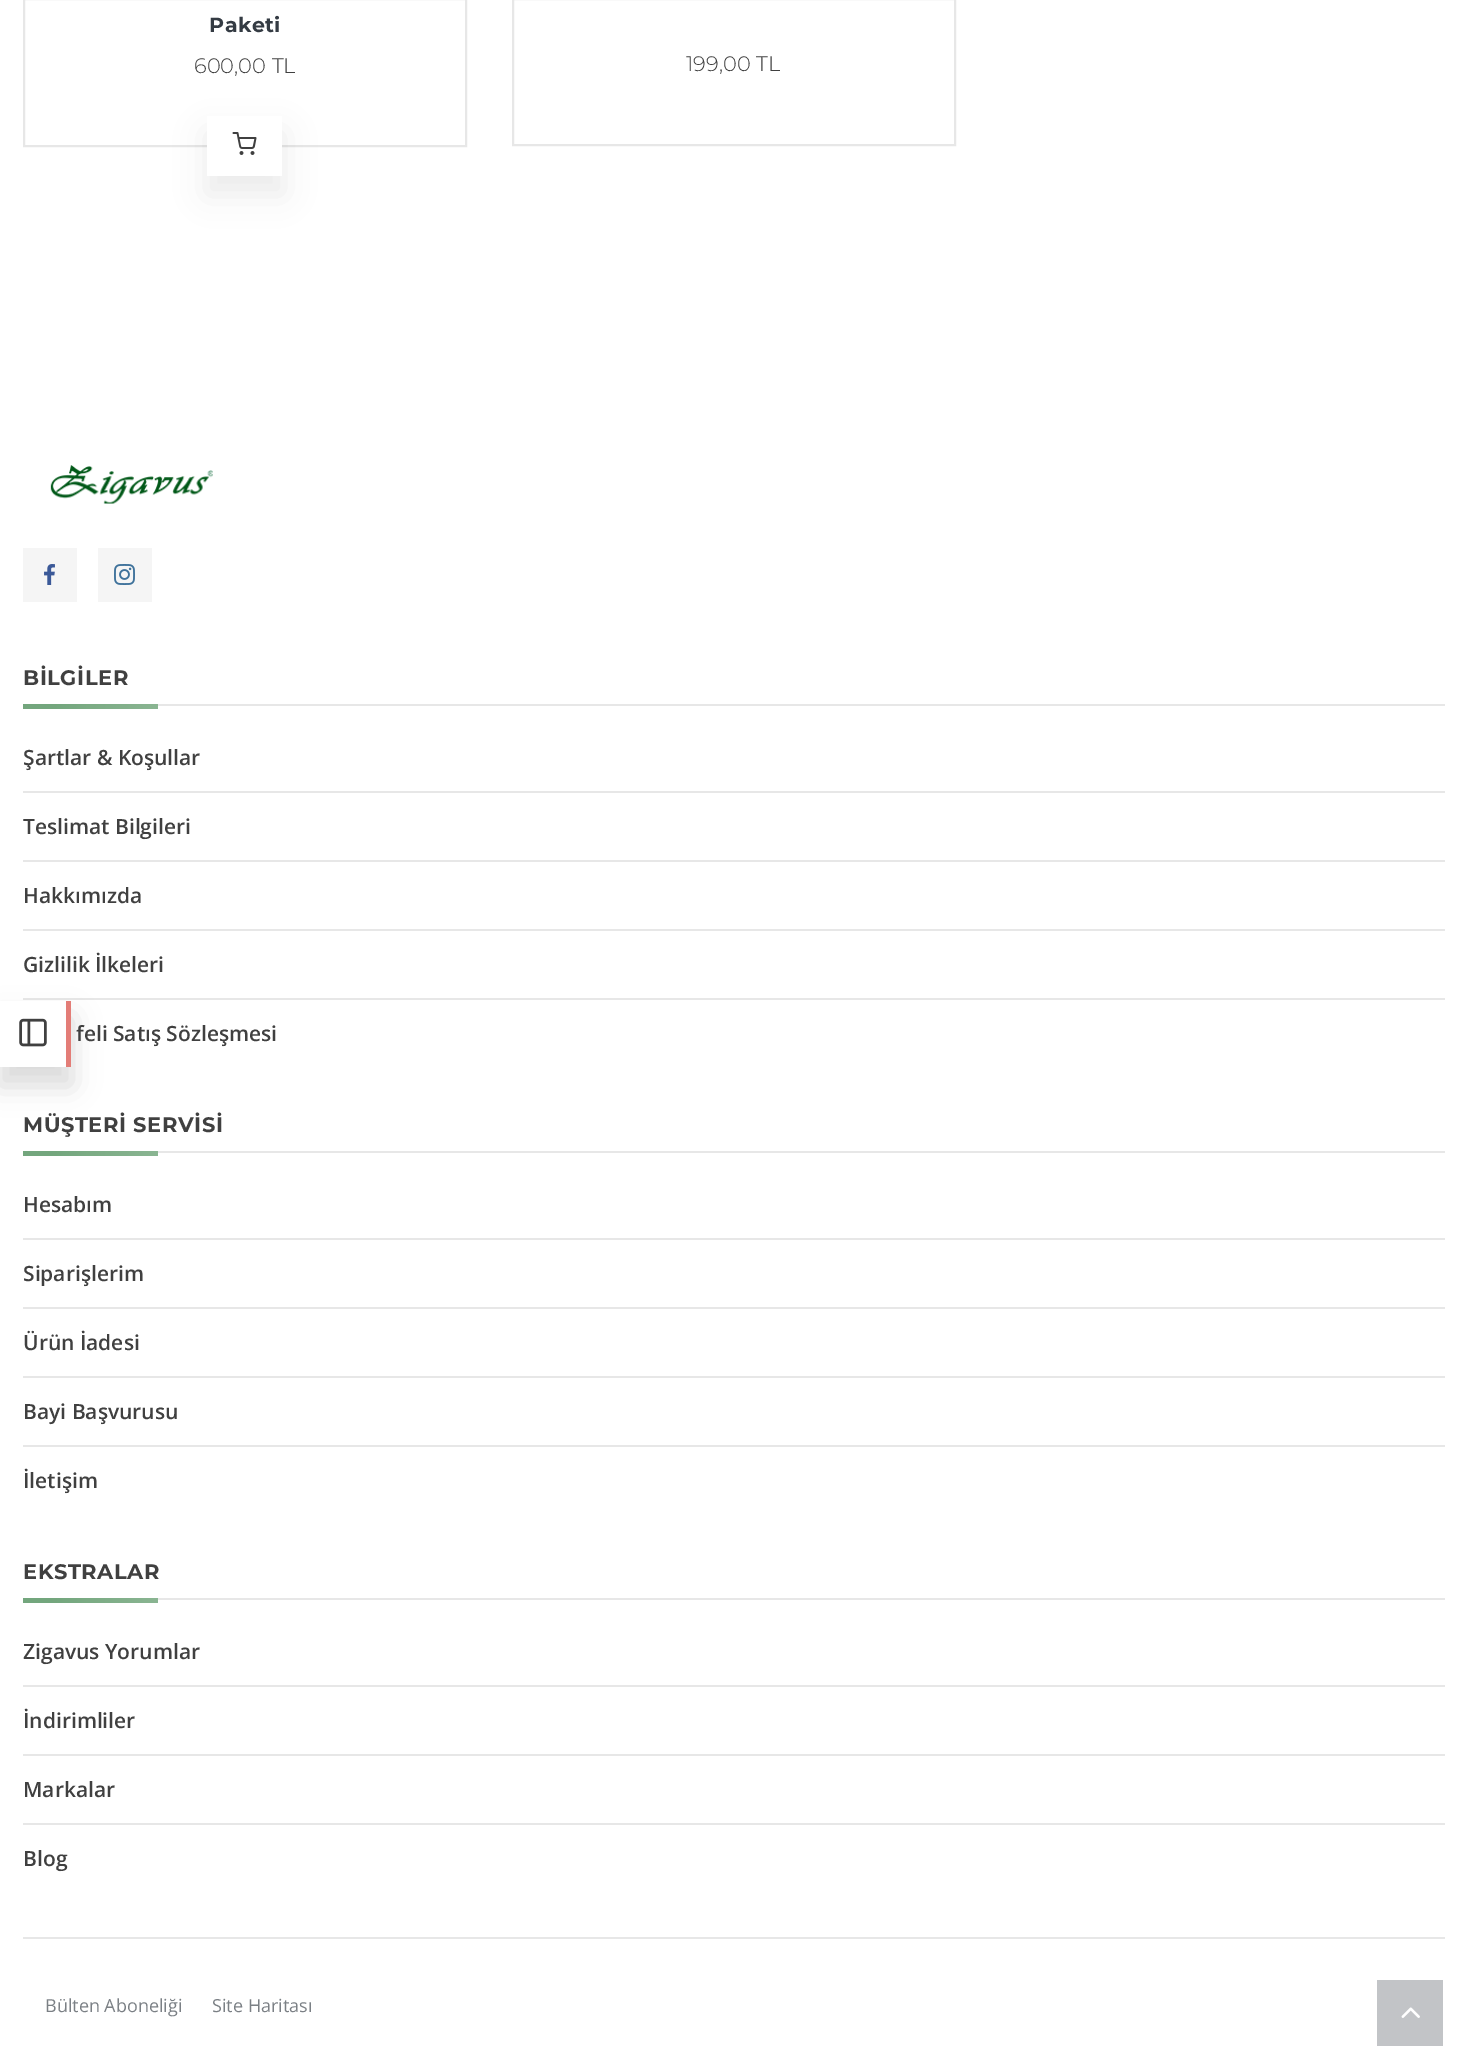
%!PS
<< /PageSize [1466 2066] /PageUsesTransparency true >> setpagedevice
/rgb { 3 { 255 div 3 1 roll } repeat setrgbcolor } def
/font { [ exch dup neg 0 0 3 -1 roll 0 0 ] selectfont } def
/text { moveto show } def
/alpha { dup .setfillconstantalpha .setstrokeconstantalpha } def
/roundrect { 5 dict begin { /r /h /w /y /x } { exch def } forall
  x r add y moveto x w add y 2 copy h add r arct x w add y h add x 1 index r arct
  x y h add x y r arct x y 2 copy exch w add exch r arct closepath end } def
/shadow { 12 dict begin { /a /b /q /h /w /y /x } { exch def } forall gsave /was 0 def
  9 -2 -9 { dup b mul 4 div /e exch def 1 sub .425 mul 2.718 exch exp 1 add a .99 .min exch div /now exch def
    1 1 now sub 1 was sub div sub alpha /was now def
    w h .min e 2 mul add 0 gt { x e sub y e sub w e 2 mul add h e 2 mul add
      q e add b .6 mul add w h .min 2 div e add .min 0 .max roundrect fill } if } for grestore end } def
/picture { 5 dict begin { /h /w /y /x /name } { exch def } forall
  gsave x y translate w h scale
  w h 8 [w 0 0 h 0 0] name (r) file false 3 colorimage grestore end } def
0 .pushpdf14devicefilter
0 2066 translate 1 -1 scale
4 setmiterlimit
255 255 255 rgb
0 0 1466 2066 rectfill
231 231 231 rgb
2 setlinewidth
24 -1 442 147 rectstroke
64 64 64 rgb
206 132 78 63 0 15 0.11 shadow
255 255 255 rgb
207 116 75 60 rectfill
(img_01.rgb) 232 132 25 23 picture
231 231 231 rgb
513 -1 442 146 rectstroke
23 998 1422 2 rectfill
64 64 64 rgb
-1 1017 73 69 0 14 0.2 shadow
255 255 255 rgb
0 1001 66 66 rectfill
(img_02.rgb) 19 1018 28 29 picture
227 125 119 rgb
66 1001 5 66 rectfill
(img_03.rgb) 50 465 163 39 picture
245 245 245 rgb
23 548 54 54 rectfill
(img_04.rgb) 44 564 11 21 picture
98 548 54 54 rectfill
(img_05.rgb) 114 564 21 21 picture
231 231 231 rgb
158 704 1287 2 rectfill
gsave 23 704 moveto 135 0 rlineto 0 5 rlineto -135 0 rlineto closepath clip newpath
<< /ShadingType 2 /ColorSpace /DeviceRGB /Coords [23 706 158 706] /Extend [true true] /Function << /FunctionType 3 /Domain [0 1] /Functions [<< /FunctionType 2 /Domain [0 1] /C0 [0.451 0.651 0.49] /C1 [0.451 0.651 0.49] /N 1 >> << /FunctionType 2 /Domain [0 1] /C0 [0.451 0.651 0.49] /C1 [0.541 0.71 0.573] /N 1 >>] /Bounds [0.2] /Encode [0 1 0 1] >> >> shfill grestore
23 791 1422 2 rectfill
23 860 1422 2 rectfill
23 929 1422 2 rectfill
158 1151 1287 2 rectfill
gsave 23 1151 moveto 135 0 rlineto 0 5 rlineto -135 0 rlineto closepath clip newpath
<< /ShadingType 2 /ColorSpace /DeviceRGB /Coords [23 1153 158 1153] /Extend [true true] /Function << /FunctionType 3 /Domain [0 1] /Functions [<< /FunctionType 2 /Domain [0 1] /C0 [0.451 0.651 0.49] /C1 [0.451 0.651 0.49] /N 1 >> << /FunctionType 2 /Domain [0 1] /C0 [0.451 0.651 0.49] /C1 [0.541 0.71 0.573] /N 1 >>] /Bounds [0.2] /Encode [0 1 0 1] >> >> shfill grestore
23 1238 1422 2 rectfill
23 1307 1422 2 rectfill
23 1376 1422 2 rectfill
23 1445 1422 2 rectfill
158 1598 1287 2 rectfill
gsave 23 1598 moveto 135 0 rlineto 0 5 rlineto -135 0 rlineto closepath clip newpath
<< /ShadingType 2 /ColorSpace /DeviceRGB /Coords [23 1600 158 1600] /Extend [true true] /Function << /FunctionType 3 /Domain [0 1] /Functions [<< /FunctionType 2 /Domain [0 1] /C0 [0.451 0.651 0.49] /C1 [0.451 0.651 0.49] /N 1 >> << /FunctionType 2 /Domain [0 1] /C0 [0.451 0.651 0.49] /C1 [0.541 0.71 0.573] /N 1 >>] /Bounds [0.2] /Encode [0 1 0 1] >> >> shfill grestore
23 1685 1422 2 rectfill
23 1754 1422 2 rectfill
23 1823 1422 2 rectfill
23 1937 1422 2 rectfill
194 196 199 rgb
1377 1980 66 66 rectfill
(img_06.rgb) 1401 2007 19 11 picture
/Montserrat-Bold 20.5 font
52 59 67 rgb
209 32 moveto 0.5 0 (Paketi) ashow
/Montserrat-Light 21 font
64 64 64 rgb
(600,00 TL) 194 73 text
(199,00 TL) 686 71 text
/Montserrat-Bold 21 font
23 685 moveto 0.6 0 (BİLGİLER) ashow
/OpenSans-SemiBold 21 font
(Şartlar & Koşullar) 23 765 text
(Teslimat Bilgileri) 23 834 text
(Hakkımızda) 23 903 text
(Gizlilik İlkeleri) 23 972 text
(feli Satış Sözleşmesi) 76 1041 text
/Montserrat-Bold 21 font
23 1132 moveto 0.6 0 (MÜŞTERİ SERVİSİ) ashow
/OpenSans-SemiBold 21 font
(Hesabım) 23 1212 text
(Siparişlerim) 23 1281 text
(Ürün İadesi) 23 1350 text
(Bayi Başvurusu) 23 1419 text
(İletişim) 23 1488 text
/Montserrat-Bold 21 font
23 1579 moveto 0.6 0 (EKSTRALAR) ashow
/OpenSans-SemiBold 21 font
(Zigavus Yorumlar) 23 1659 text
(İndirimliler) 23 1728 text
(Markalar) 23 1797 text
(Blog) 23 1866 text
/OpenSans-Regular 18 font
123 128 133 rgb
(Bülten Aboneliği) 45 2012 text
(Site Haritası) 212 2012 text
.poppdf14devicefilter showpage
